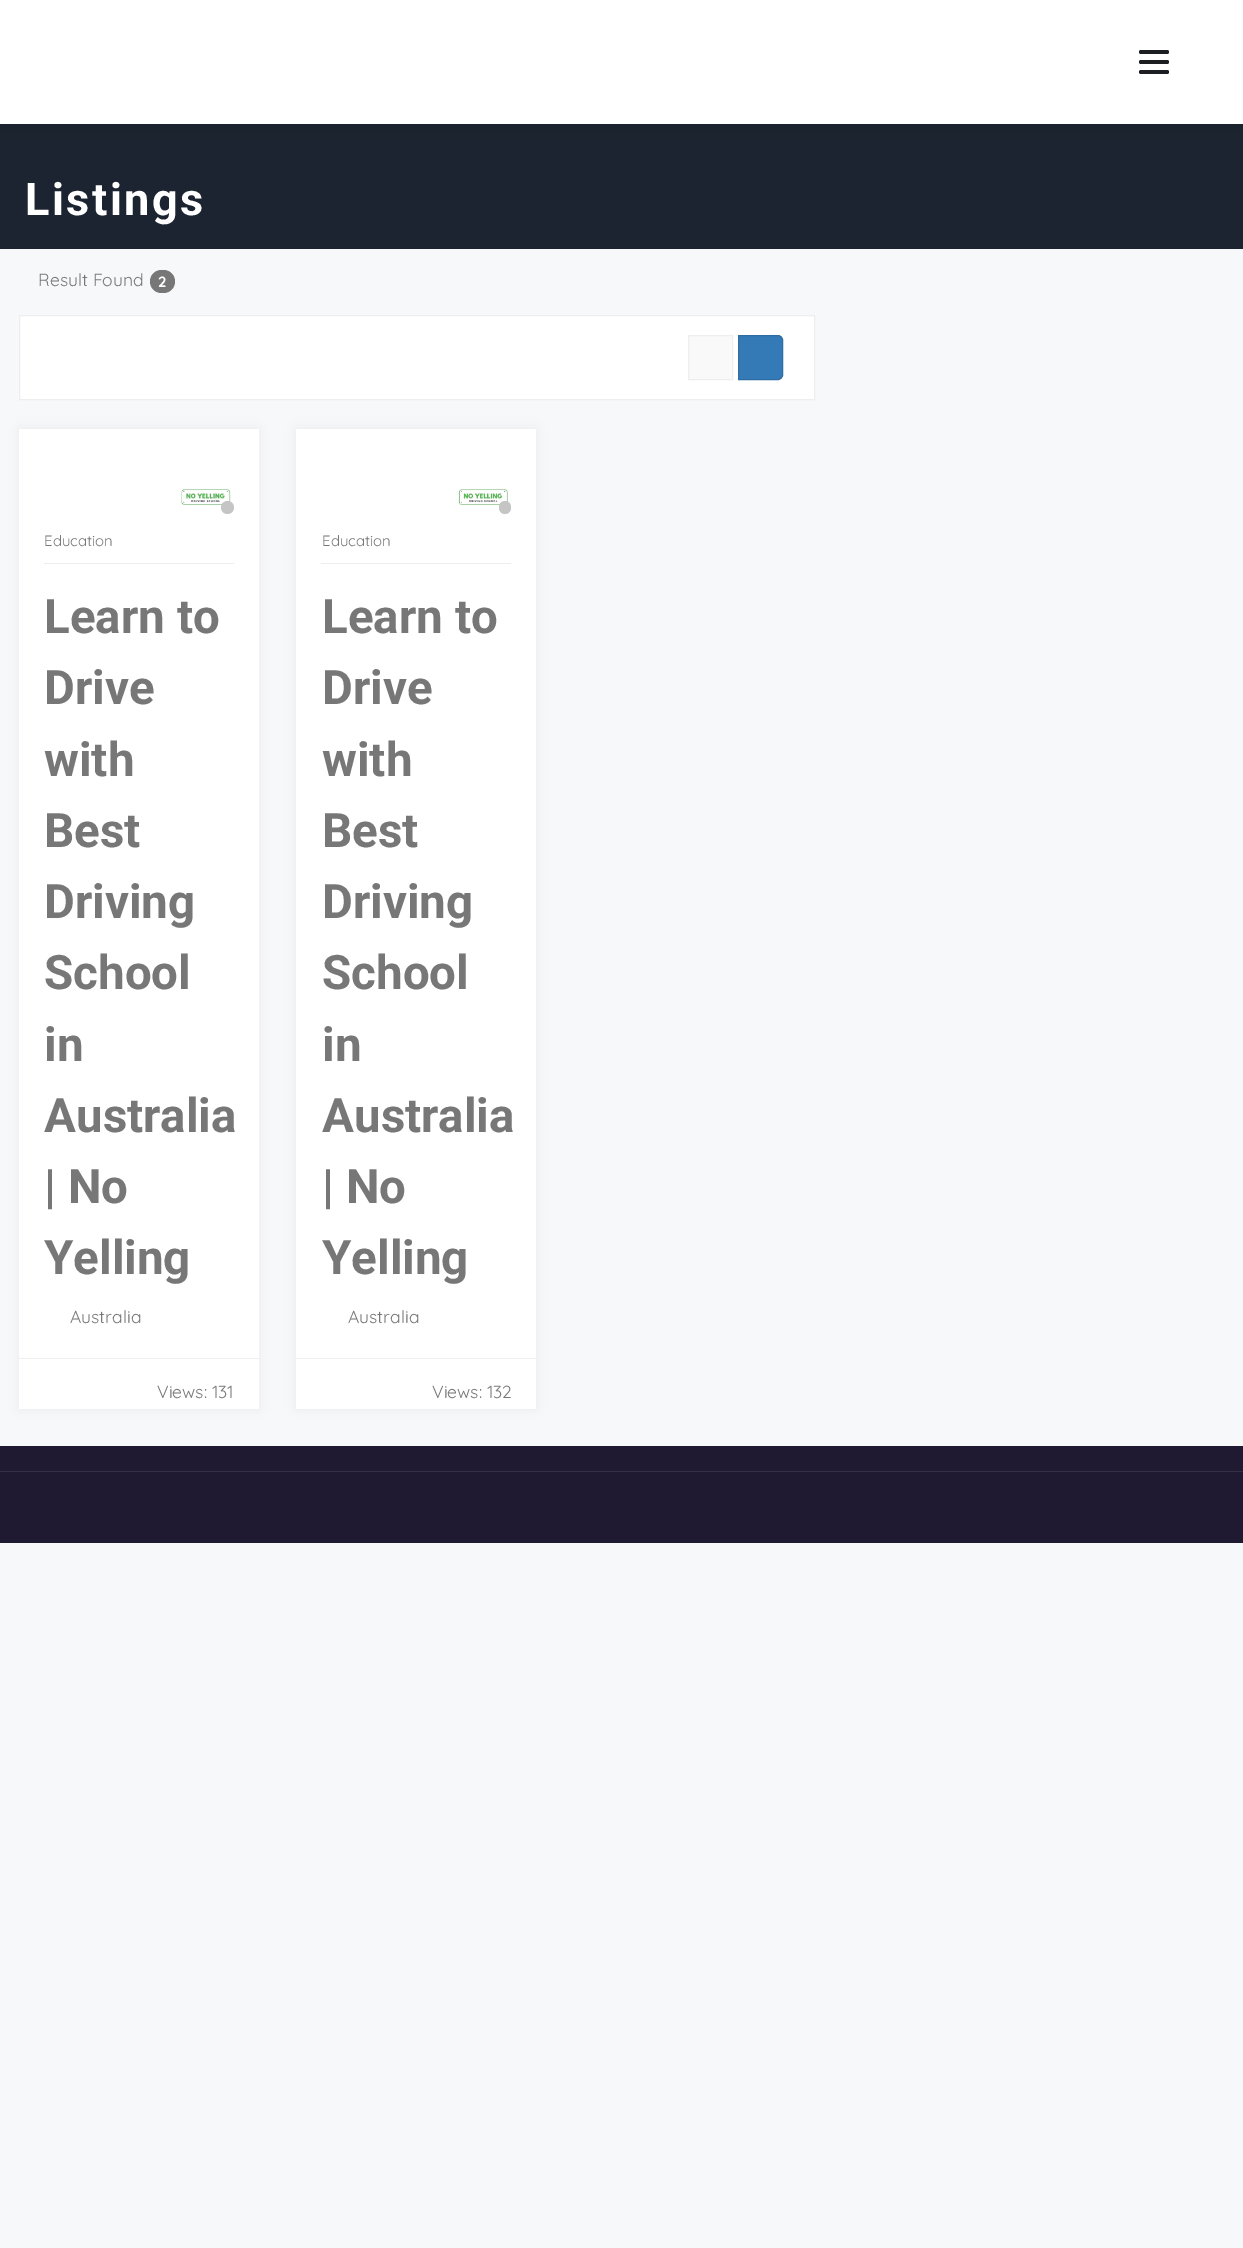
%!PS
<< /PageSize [1243 2248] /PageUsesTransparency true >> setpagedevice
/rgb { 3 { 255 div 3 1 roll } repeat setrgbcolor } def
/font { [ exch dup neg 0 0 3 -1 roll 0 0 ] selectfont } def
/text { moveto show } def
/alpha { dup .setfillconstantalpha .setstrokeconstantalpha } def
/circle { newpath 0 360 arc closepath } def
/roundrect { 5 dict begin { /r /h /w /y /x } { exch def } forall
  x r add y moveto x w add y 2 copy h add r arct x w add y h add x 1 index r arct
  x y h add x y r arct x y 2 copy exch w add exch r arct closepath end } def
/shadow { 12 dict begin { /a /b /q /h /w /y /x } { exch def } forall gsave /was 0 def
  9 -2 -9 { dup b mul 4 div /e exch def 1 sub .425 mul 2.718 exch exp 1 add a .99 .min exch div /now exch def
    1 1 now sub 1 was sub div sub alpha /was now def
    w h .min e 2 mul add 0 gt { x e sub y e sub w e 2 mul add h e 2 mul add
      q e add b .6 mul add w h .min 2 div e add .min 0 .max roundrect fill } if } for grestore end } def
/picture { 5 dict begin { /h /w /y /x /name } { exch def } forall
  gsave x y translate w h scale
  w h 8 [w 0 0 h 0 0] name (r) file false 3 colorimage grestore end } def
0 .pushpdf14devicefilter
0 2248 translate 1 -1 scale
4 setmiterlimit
247 248 249 rgb
0 0 1243 2248 rectfill
28 36 49 rgb
0 124 1243 125 rectfill
0 0 0 rgb
0 0 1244 124 0 12.5 0.15 shadow
255 255 255 rgb
0 0 1243 124 rectfill
28 30 33 rgb
1139 50 30 4 2 roundrect fill
1139 60 30 4 2 roundrect fill
1139 70 30 4 2 roundrect fill
119 119 119 rgb
150 270 25 23 11.5 roundrect fill
255 255 255 rgb
19.5 315.5 moveto 795 0 rlineto 0 84 rlineto -795 0 rlineto closepath gsave fill grestore
238 238 238 rgb
stroke
249 249 249 rgb
688.5 335.5 moveto 44 0 rlineto 0 44 rlineto -44 0 rlineto closepath gsave fill grestore
238 238 238 rgb
stroke
51 122 183 rgb
738.5 335.5 moveto 39.5 0 rlineto 2.5 0 4.5 2 4.5 4.5 rcurveto 0 35 rlineto 0 2.5 -2 4.5 -4.5 4.5 rcurveto -39.5 0 rlineto closepath gsave fill grestore
46 109 164 rgb
stroke
0 0 0 rgb
19 429 240 980 0 6 0.05 shadow
255 255 255 rgb
19 429 240 980 rectfill
(img_01.rgb) 181 489 50 16 picture
197 197 197 rgb
227.5 507.5 6.5 circle fill
238 238 238 rgb
44 563 190 1 rectfill
19 1358 240 1 rectfill
0 0 0 rgb
296 429 240 980 0 6 0.05 shadow
255 255 255 rgb
296 429 240 980 rectfill
(img_02.rgb) 458 489 50 16 picture
197 197 197 rgb
499 501 12 13 6 roundrect fill
238 238 238 rgb
321 563 190 1 rectfill
296 1358 240 1 rectfill
32 25 50 rgb
0 1446 1243 97 rectfill
54 48 71 rgb
0 1471 1243 1 rectfill
/Roboto-Bold 45 font
255 255 255 rgb
25 215 moveto 2.5 0 (Listings) ashow
/Quicksand-Regular 17.5 font
119 119 119 rgb
(Result Found) 38 286 text
/Quicksand-Bold 15 font
255 255 255 rgb
(2) 158 287 text
/Quicksand-Regular 15 font
119 119 119 rgb
(Education) 44 546 text
/Roboto-Bold 47.5 font
(Learn to) 44 633 text
(Drive) 44 704 text
(with) 44 776 text
(Best) 44 847 text
(Driving) 44 918 text
(School) 44 989 text
(in) 44 1061 text
(Australia) 44 1132 text
(| No) 44 1203 text
(Yelling) 44 1274 text
/Quicksand-Regular 17.5 font
(Australia) 70 1323 text
(Views: 131) 157 1398 text
/Quicksand-Regular 15 font
(Education) 322 546 text
/Roboto-Bold 47.5 font
(Learn to) 322 633 text
(Drive) 322 704 text
(with) 322 776 text
(Best) 322 847 text
(Driving) 322 918 text
(School) 322 989 text
(in) 322 1061 text
(Australia) 322 1132 text
(| No) 322 1203 text
(Yelling) 322 1274 text
/Quicksand-Regular 17.5 font
(Australia) 348 1323 text
(Views: 132) 432 1398 text
.poppdf14devicefilter showpage
